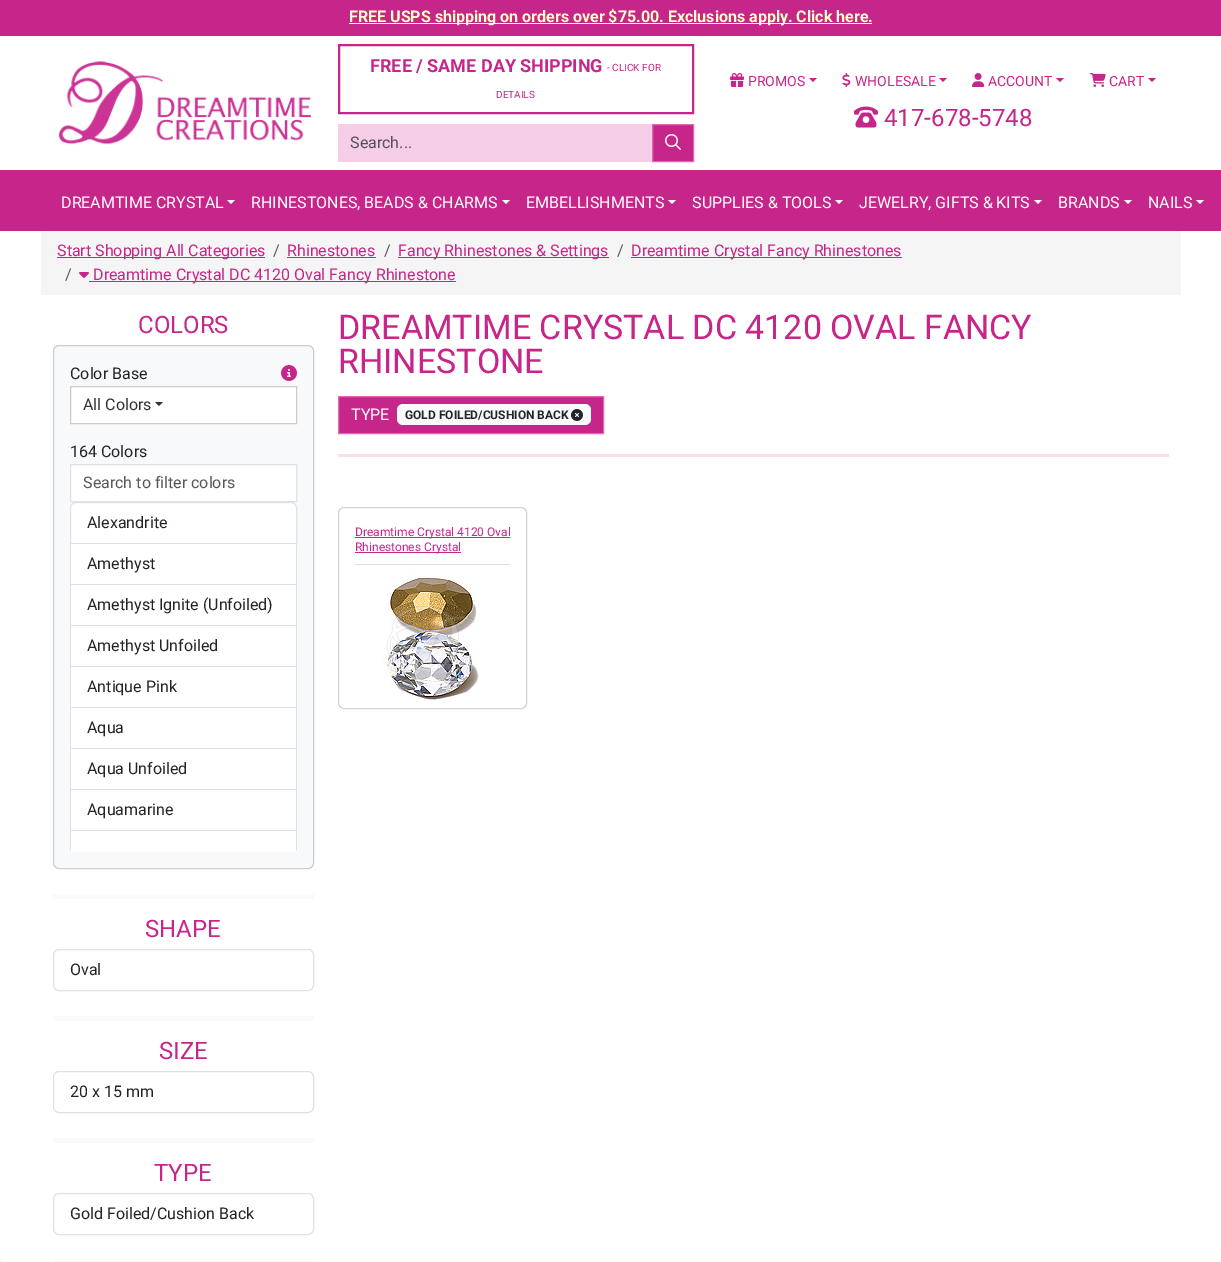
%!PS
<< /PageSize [1221 1262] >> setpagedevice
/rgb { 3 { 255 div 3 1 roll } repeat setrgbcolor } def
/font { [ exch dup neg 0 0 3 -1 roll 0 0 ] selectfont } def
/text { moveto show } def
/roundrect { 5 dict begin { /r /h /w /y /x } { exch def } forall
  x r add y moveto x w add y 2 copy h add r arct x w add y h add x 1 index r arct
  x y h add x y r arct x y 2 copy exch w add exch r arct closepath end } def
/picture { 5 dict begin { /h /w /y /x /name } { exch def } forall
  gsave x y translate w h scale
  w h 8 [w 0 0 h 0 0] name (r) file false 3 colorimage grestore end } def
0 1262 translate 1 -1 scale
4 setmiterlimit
255 255 255 rgb
0 0 1221 1262 rectfill
198 37 137 rgb
0 0 1221 36 rectfill
255 255 204 rgb
349 23 523 1 rectfill
(img_01.rgb) 58 61 254 84 picture
198 37 137 rgb
2 setlinewidth
339 45 354 68 rectstroke
246 205 230 rgb
338 124 314 38 rectfill
198 37 137 rgb
652.5 124.5 moveto 41 0 rlineto 0 37 rlineto -41 0 rlineto closepath gsave fill grestore
227 106 181 rgb
1 setlinewidth
stroke
(img_02.rgb) 665 134 16 16 picture
(img_03.rgb) 730 73 14 14 picture
198 37 137 rgb
809 78 moveto 8 0 rlineto -4 4 rlineto closepath fill
(img_04.rgb) 842 73 9 14 picture
939 78 moveto 8 0 rlineto -4 4 rlineto closepath fill
(img_05.rgb) 972 73 13 14 picture
1056 78 moveto 8 0 rlineto -4 4 rlineto closepath fill
(img_06.rgb) 1090 73 16 14 picture
1148 78 moveto 8 0 rlineto -4 4 rlineto closepath fill
(img_07.rgb) 854 106 24 22 picture
0 170 1221 61 rectfill
255 255 255 rgb
227 200 moveto 8 0 rlineto -4 4 rlineto closepath fill
502 200 moveto 8 0 rlineto -4 4 rlineto closepath fill
668 200 moveto 8 0 rlineto -4 4 rlineto closepath fill
835 200 moveto 8 0 rlineto -4 4 rlineto closepath fill
1034 200 moveto 8 0 rlineto -4 4 rlineto closepath fill
1124 200 moveto 8 0 rlineto -4 4 rlineto closepath fill
1196 200 moveto 8 0 rlineto -4 4 rlineto closepath fill
245 245 245 rgb
41 231 1140 64 rectfill
198 37 137 rgb
57 257 208 1 rectfill
287 257 89 1 rectfill
398 257 211 1 rectfill
631 257 271 1 rectfill
(img_08.rgb) 79 272 10 6 picture
89 281 367 1 rectfill
250 250 250 rgb
53 894 261 5 rectfill
248 249 250 rgb
53.5 345.5 260 523 5.5 roundrect gsave fill grestore
204 205 206 rgb
stroke
(img_09.rgb) 281 365 16 16 picture
255 255 255 rgb
70.5 386.5 moveto 226 0 rlineto 0 37 rlineto -226 0 rlineto closepath gsave fill grestore
204 204 204 rgb
stroke
51 51 51 rgb
155 402 moveto 8 0 rlineto -4 4 rlineto closepath fill
255 255 255 rgb
70.5 464.5 moveto 226 0 rlineto 0 37 rlineto -226 0 rlineto closepath gsave fill grestore
222 226 230 rgb
stroke
255 255 255 rgb
76 502.5 moveto 215 0 rlineto 3 0 5.5 2.5 5.5 5.5 rcurveto 0 35.5 rlineto -226 0 rlineto 0 -35.5 rlineto 0 -3 2.5 -5.5 5.5 -5.5 rcurveto closepath gsave fill grestore
222 226 230 rgb
stroke
255 255 255 rgb
71 544 225 40 rectfill
222 226 230 rgb
296 544 1 287 rectfill
70 584 227 1 rectfill
70 544 1 41 rectfill
255 255 255 rgb
71 585 225 40 rectfill
222 226 230 rgb
70 625 227 1 rectfill
70 585 1 41 rectfill
255 255 255 rgb
71 626 225 40 rectfill
222 226 230 rgb
70 666 227 1 rectfill
70 626 1 41 rectfill
255 255 255 rgb
71 667 225 40 rectfill
222 226 230 rgb
70 707 227 1 rectfill
70 667 1 41 rectfill
255 255 255 rgb
71 708 225 40 rectfill
222 226 230 rgb
70 748 227 1 rectfill
70 708 1 41 rectfill
255 255 255 rgb
71 749 225 40 rectfill
222 226 230 rgb
70 789 227 1 rectfill
70 749 1 41 rectfill
255 255 255 rgb
71 790 225 40 rectfill
222 226 230 rgb
70 830 227 1 rectfill
70 790 1 41 rectfill
gsave
70 502 227 350 6 roundrect clip newpath
255 255 255 rgb
71 831 225 21 rectfill
222 226 230 rgb
296 831 1 21 rectfill
70 831 1 21 rectfill
grestore
250 250 250 rgb
53 1016 261 5 rectfill
222 226 230 rgb
53.5 949.5 260 41 5.5 roundrect stroke
250 250 250 rgb
53 1138 261 5 rectfill
222 226 230 rgb
53.5 1071.5 260 41 5.5 roundrect stroke
250 250 250 rgb
53 1260 261 2 rectfill
222 226 230 rgb
53.5 1193.5 260 41 5.5 roundrect stroke
198 37 137 rgb
338.5 396.5 moveto 265 0 rlineto 0 37 rlineto -265 0 rlineto closepath gsave fill grestore
227 106 181 rgb
stroke
248 249 250 rgb
397 404 194 21 6 roundrect fill
(img_10.rgb) 571 409 12 12 picture
249 222 238 rgb
338 454 831 3 rectfill
210 210 210 rgb
338.5 507.5 188 201 5.5 roundrect stroke
221 221 221 rgb
355 564 155 1 rectfill
198 37 137 rgb
355 537 155 1 rectfill
355 552 106 1 rectfill
(img_11.rgb) 382 573 97 128 picture
245 245 245 rgb
0 1260 2 2 rectfill
/Roboto-Bold 16 font
255 255 204 rgb
(FREE USPS shipping on orders over $75.00. Exclusions apply. Click here.) 349 22 text
/Roboto-Bold 18 font
198 37 137 rgb
(FREE / SAME DAY SHIPPING) 370 72 text
/Roboto-Regular 10 font
(- CLICK FOR) 607 71 text
(DETAILS) 496 98 text
/Roboto-Regular 16 font
86 79 88 rgb
(Search...) 350 148 text
/Roboto-Regular 14 font
198 37 137 rgb
(PROMOS) 748 86 text
(WHOLESALE) 855 86 text
(ACCOUNT) 988 86 text
(CART) 1109 86 text
/Roboto-Regular 24 font
(417-678-5748) 884 126 text
/Roboto-Regular 16 font
255 255 255 rgb
(DREAMTIME CRYSTAL) 61 208 text
(RHINESTONES, BEADS & CHARMS) 251 208 text
(EMBELLISHMENTS) 526 208 text
(SUPPLIES & TOOLS) 692 208 text
(JEWELRY, GIFTS & KITS) 859 208 text
(BRANDS) 1058 208 text
(NAILS) 1148 208 text
198 37 137 rgb
(Start Shopping All Categories) 57 256 text
86 89 92 rgb
(/) 273 256 text
198 37 137 rgb
(Rhinestones) 287 256 text
86 89 92 rgb
(/) 384 256 text
198 37 137 rgb
(Fancy Rhinestones & Settings) 398 256 text
86 89 92 rgb
(/) 617 256 text
198 37 137 rgb
(Dreamtime Crystal Fancy Rhinestones) 631 256 text
86 89 92 rgb
(/) 65 280 text
198 37 137 rgb
(Dreamtime Crystal DC 4120 Oval Fancy Rhinestone) 93 280 text
/Roboto-Regular 24 font
(COLORS) 138 333 text
/Roboto-Regular 16 font
33 37 41 rgb
(Color Base) 70 379 text
51 51 51 rgb
(All Colors) 83 410 text
33 37 41 rgb
(164 Colors) 70 457 text
86 89 92 rgb
(Search to filter colors) 83 488 text
33 37 41 rgb
(Alexandrite) 87 528 text
(Amethyst) 87 569 text
(Amethyst Ignite \(Unfoiled\)) 87 610 text
(Amethyst Unfoiled) 87 651 text
(Antique Pink) 87 692 text
(Aqua) 87 733 text
(Aqua Unfoiled) 87 774 text
(Aquamarine) 87 815 text
/Roboto-Regular 24 font
198 37 137 rgb
(SHAPE) 145 937 text
/Roboto-Regular 16 font
33 37 41 rgb
(Oval) 70 975 text
/Roboto-Regular 24 font
198 37 137 rgb
(SIZE) 159 1059 text
/Roboto-Regular 16 font
33 37 41 rgb
(20 x 15 mm) 70 1097 text
/Roboto-Regular 24 font
198 37 137 rgb
(TYPE) 154 1181 text
/Roboto-Regular 16 font
33 37 41 rgb
(Gold Foiled/Cushion Back) 70 1219 text
/Roboto-Regular 34 font
198 37 137 rgb
(DREAMTIME CRYSTAL DC 4120 OVAL FANCY) 338 339 text
(RHINESTONE) 338 373 text
/Roboto-Regular 16 font
255 255 255 rgb
(TYPE) 351 420 text
/Roboto-Bold 12 font
33 37 41 rgb
(GOLD FOILED/CUSHION BACK) 405 419 text
/Roboto-Regular 12 font
198 37 137 rgb
(Dreamtime Crystal 4120 Oval) 355 536 text
(Rhinestones Crystal) 355 551 text
showpage
